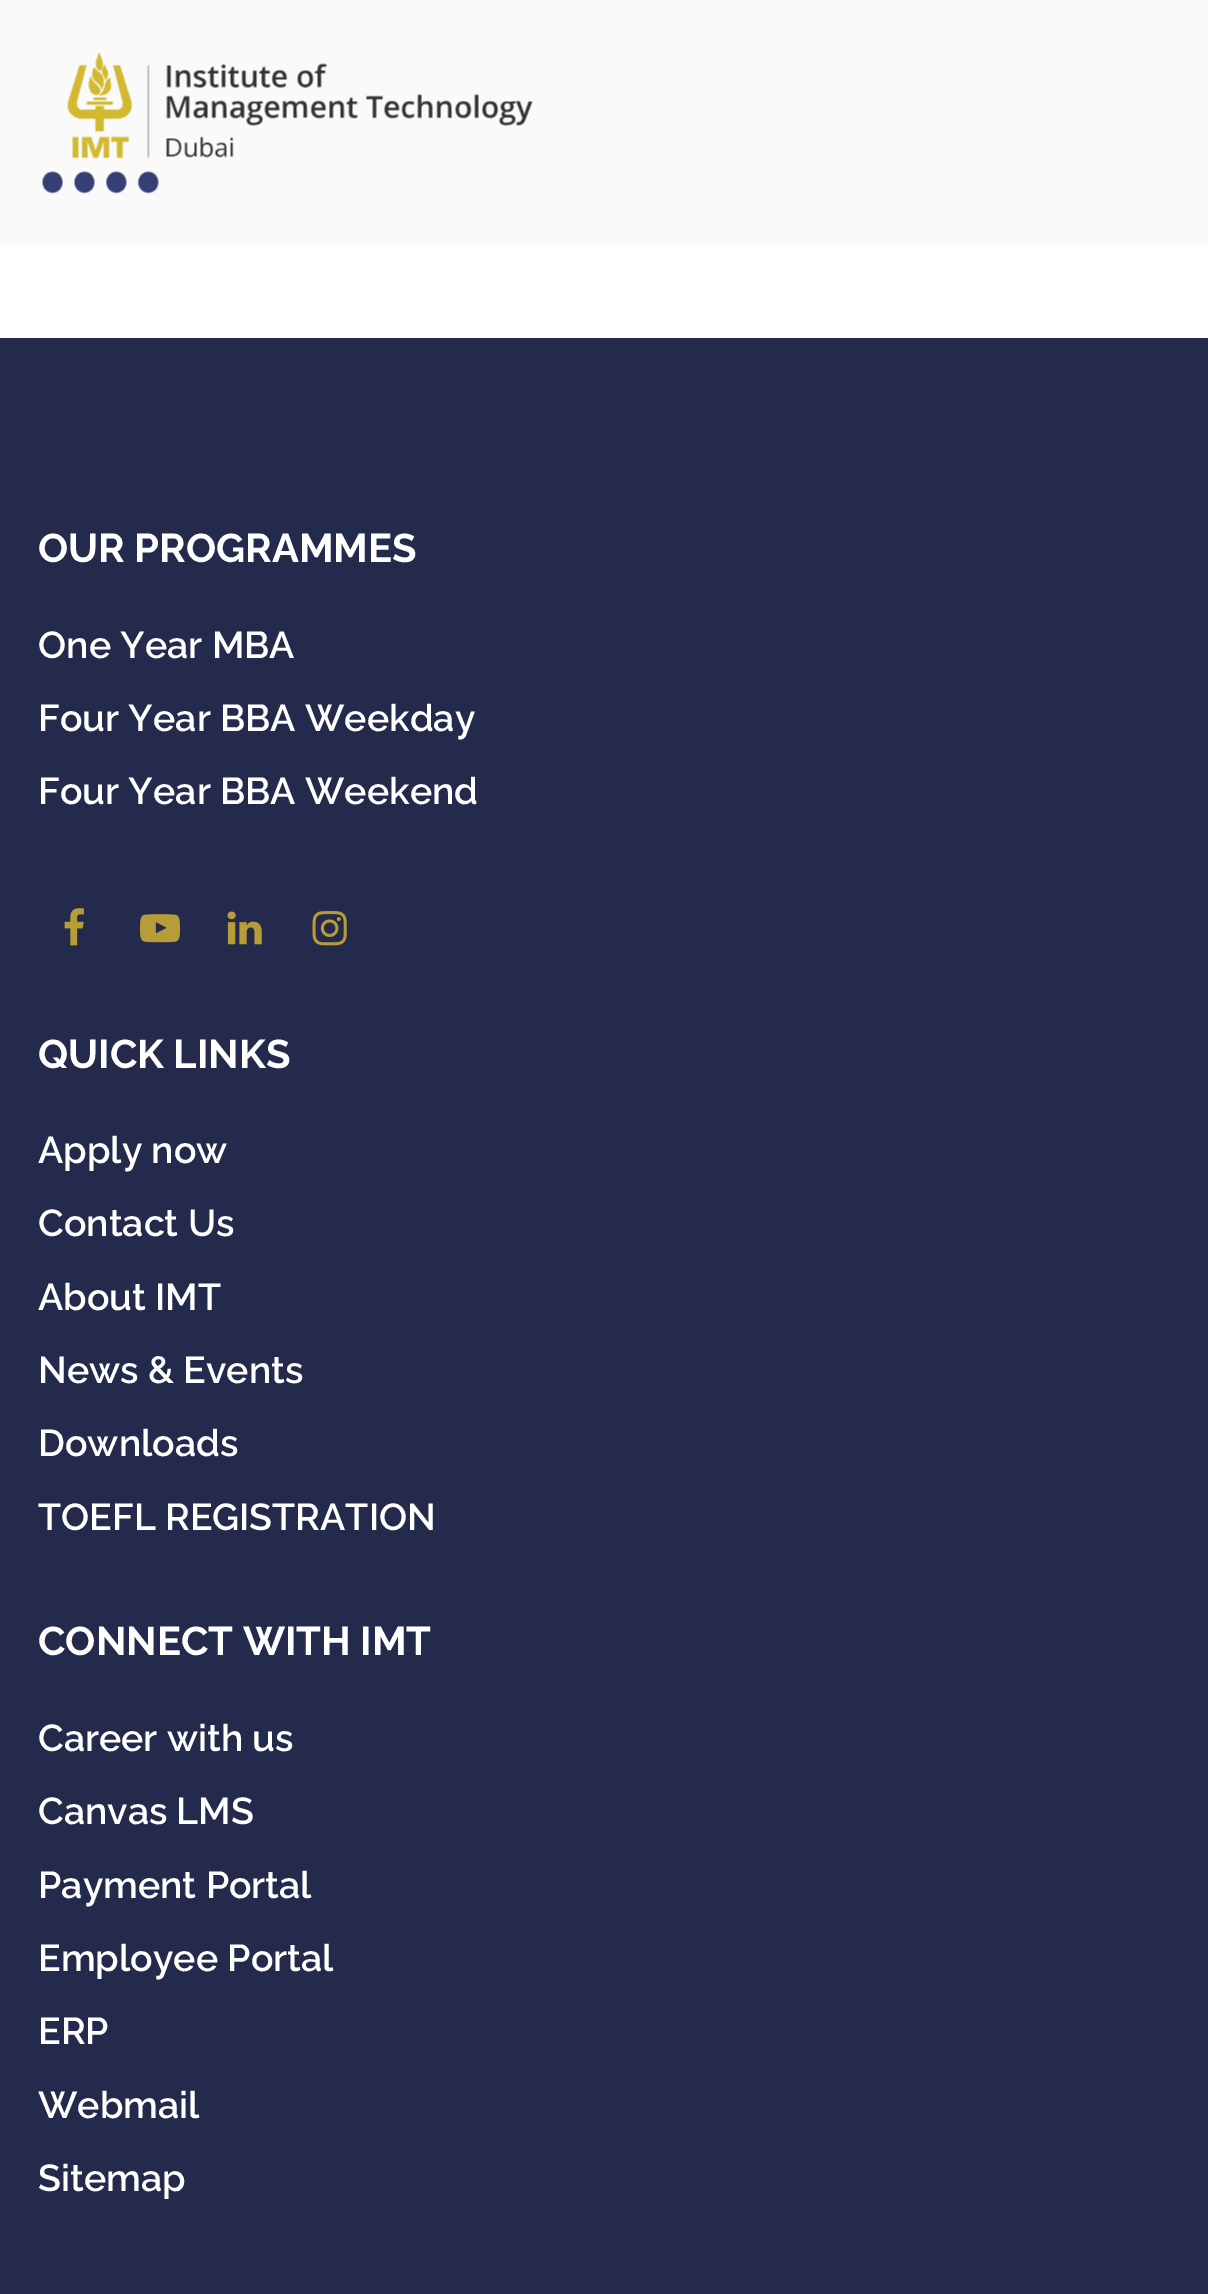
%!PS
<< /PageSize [1208 2294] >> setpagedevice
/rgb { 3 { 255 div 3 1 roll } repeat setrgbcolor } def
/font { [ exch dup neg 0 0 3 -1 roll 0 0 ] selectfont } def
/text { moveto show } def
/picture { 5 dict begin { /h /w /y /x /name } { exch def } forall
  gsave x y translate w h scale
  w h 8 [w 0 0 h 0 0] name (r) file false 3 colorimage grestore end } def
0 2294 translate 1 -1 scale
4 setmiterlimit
255 255 255 rgb
0 0 1208 2294 rectfill
250 250 250 rgb
0 0 1208 245 rectfill
(img_01.rgb) 42 51 491 143 picture
35 42 76 rgb
0 338 1208 1956 rectfill
(img_02.rgb) 64 908 20 38 picture
(img_03.rgb) 140 914 40 29 picture
(img_04.rgb) 227 911 35 34 picture
(img_05.rgb) 312 911 35 35 picture
/Raleway-Bold 40 font
255 255 255 rgb
(OUR PROGRAMMES) 38 562 text
/Raleway-SemiBold 37.5 font
(One Year MBA) 38 658 text
(Four Year BBA Weekday) 38 731 text
(Four Year BBA Weekend) 38 804 text
/Raleway-Bold 40 font
(QUICK LINKS) 38 1068 text
/Raleway-SemiBold 37.5 font
(Apply now) 38 1163 text
(Contact Us) 38 1236 text
(About IMT) 38 1310 text
(News & Events) 38 1383 text
(Downloads) 38 1456 text
(TOEFL REGISTRATION) 38 1530 text
/Raleway-Bold 40 font
(CONNECT WITH IMT) 38 1655 text
/Raleway-SemiBold 37.5 font
(Career with us) 38 1751 text
(Canvas LMS) 38 1824 text
(Payment Portal) 38 1898 text
(Employee Portal) 38 1971 text
(ERP) 38 2044 text
(Webmail) 38 2118 text
(Sitemap) 38 2191 text
showpage
